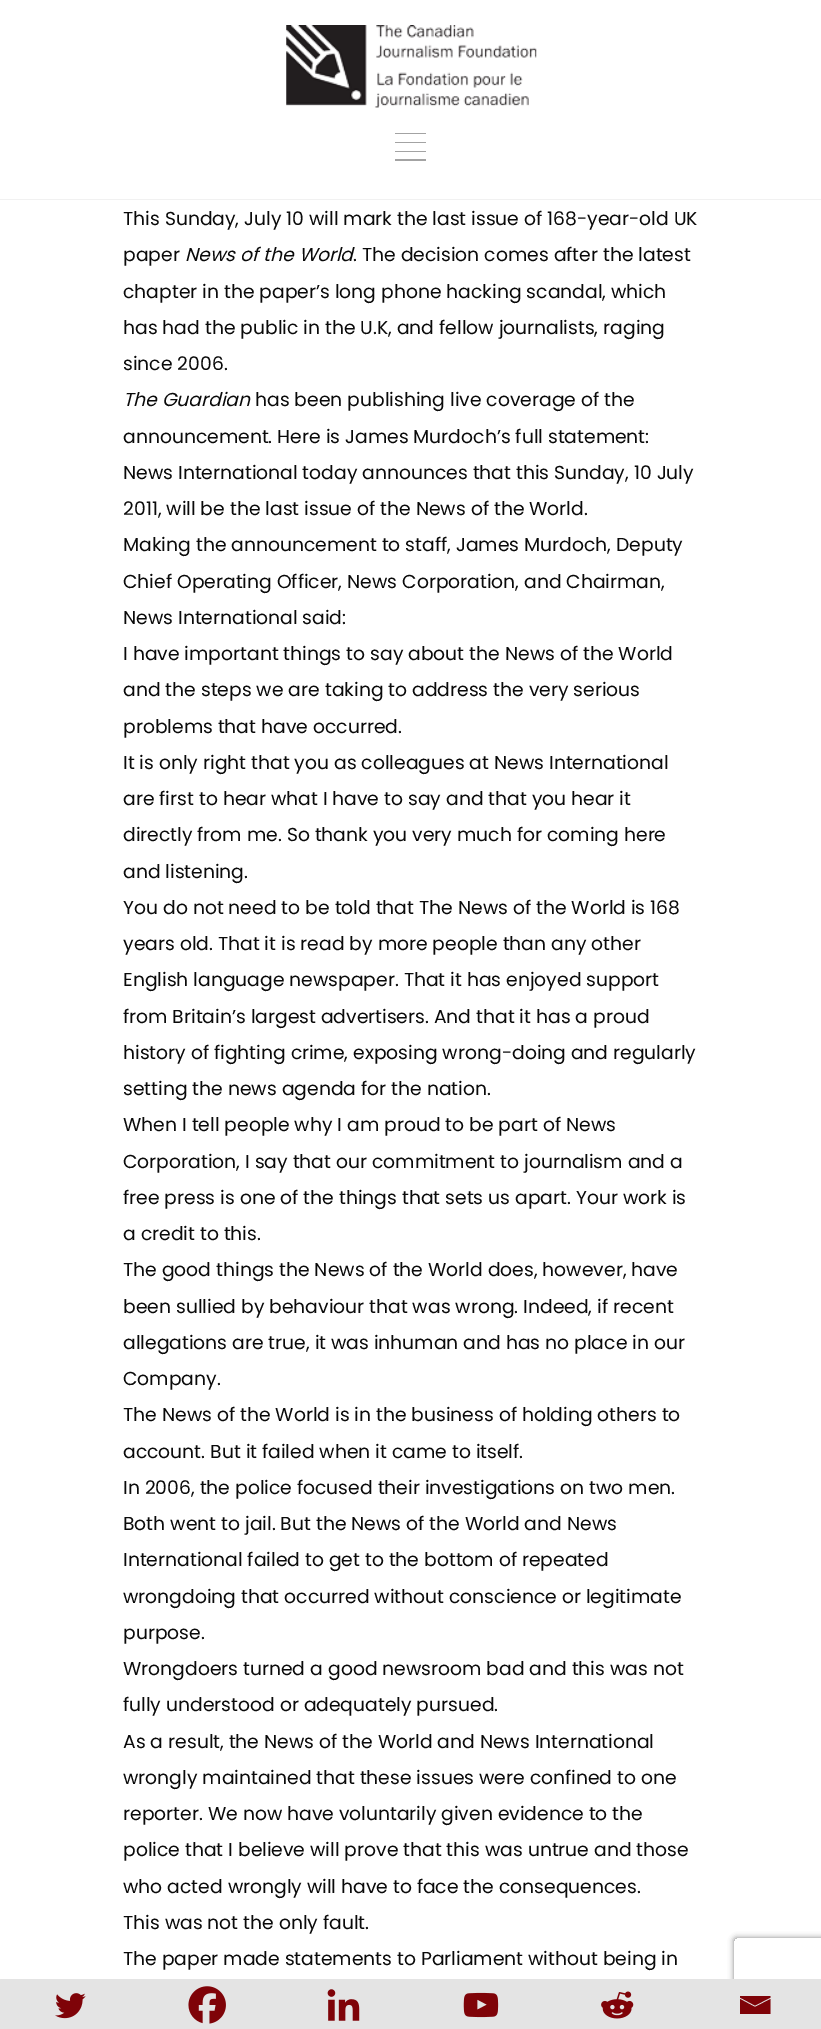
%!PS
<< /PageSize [821 2029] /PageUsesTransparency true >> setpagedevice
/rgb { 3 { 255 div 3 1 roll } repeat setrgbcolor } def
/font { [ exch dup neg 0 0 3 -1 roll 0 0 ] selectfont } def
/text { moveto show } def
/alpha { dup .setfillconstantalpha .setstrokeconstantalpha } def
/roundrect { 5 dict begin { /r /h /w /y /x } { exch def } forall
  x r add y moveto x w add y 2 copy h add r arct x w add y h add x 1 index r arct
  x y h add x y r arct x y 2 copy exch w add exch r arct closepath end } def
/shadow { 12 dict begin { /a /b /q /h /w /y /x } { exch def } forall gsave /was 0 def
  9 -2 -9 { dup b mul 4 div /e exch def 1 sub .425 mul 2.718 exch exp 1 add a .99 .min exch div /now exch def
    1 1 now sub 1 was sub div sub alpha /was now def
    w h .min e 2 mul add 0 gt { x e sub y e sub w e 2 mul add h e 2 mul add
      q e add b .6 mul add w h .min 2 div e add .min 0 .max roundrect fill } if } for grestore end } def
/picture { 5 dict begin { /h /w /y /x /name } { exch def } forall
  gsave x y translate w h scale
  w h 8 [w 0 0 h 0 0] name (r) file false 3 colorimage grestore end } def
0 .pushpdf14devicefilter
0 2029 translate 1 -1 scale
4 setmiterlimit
255 255 255 rgb
0 0 821 2029 rectfill
241 241 241 rgb
0 199 821 1 rectfill
(img_01.rgb) 286 25 251 83 picture
163 163 163 rgb
395 133 31 1 rectfill
395 142 31 1 rectfill
395 151 31 1 rectfill
395 159 31 2 rectfill
228 228 228 rgb
0.5 1979.5 139 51 0.5 roundrect gsave fill grestore
stroke
(img_02.rgb) 55 1993 31 26 picture
138.5 1979.5 137 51 0.5 roundrect gsave fill grestore
stroke
(img_03.rgb) 188 1986 38 38 picture
274.5 1979.5 139 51 0.5 roundrect gsave fill grestore
stroke
(img_04.rgb) 327 1989 33 32 picture
411.5 1979.5 138 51 0.5 roundrect gsave fill grestore
stroke
(img_05.rgb) 463 1992 36 26 picture
548.5 1979.5 139 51 0.5 roundrect gsave fill grestore
stroke
(img_06.rgb) 601 1991 33 28 picture
gsave
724 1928 moveto 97 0 rlineto 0 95 rlineto -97 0 rlineto closepath 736.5 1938 moveto 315 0 rlineto 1.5 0 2.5 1 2.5 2.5 rcurveto 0 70 rlineto 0 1.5 -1 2.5 -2.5 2.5 rcurveto -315 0 rlineto -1.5 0 -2.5 -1 -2.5 -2.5 rcurveto 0 -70 rlineto 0 -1.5 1 -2.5 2.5 -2.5 rcurveto closepath eoclip newpath
128 128 128 rgb
734 1938 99 75 2.5 3 1 shadow
grestore
685 1979 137 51 1 roundrect fill
127 3 8 rgb
738.5 1996 moveto 32 0 rlineto 0 1.5 rlineto -15.5 8 rlineto -15 -8 rlineto 0 -1.5 rlineto 740 1999 moveto 15 8 rlineto 15.5 -8 rlineto 0 15 rlineto -30.5 0 rlineto 0 -15 rlineto fill
/Poppins-Regular 18.75 font
10 10 10 rgb
(This Sunday, July 10 will mark the last issue of 168-year-old UK) 123 225 text
(paper) 123 261 text
/Poppins-Italic 18.75 font
(News of the World) 185 261 text
/Poppins-Regular 18.75 font
(. The decision comes after the latest) 353 261 text
(chapter in the paper’s long phone hacking scandal, which) 123 298 text
(has had the public in the U.K, and fellow journalists, raging) 123 334 text
(since 2006.) 123 370 text
/Poppins-Italic 18.75 font
(The Guardian) 123 406 text
/Poppins-Regular 18.75 font
(has been publishing live coverage of the) 255 406 text
(announcement. Here is James Murdoch’s full statement:) 123 443 text
(News International today announces that this Sunday, 10 July) 123 479 text
(2011, will be the last issue of the News of the World.) 123 515 text
(Making the announcement to staff, James Murdoch, Deputy) 123 551 text
(Chief Operating Officer, News Corporation, and Chairman,) 123 588 text
(News International said:) 123 624 text
(I have important things to say about the News of the World) 123 660 text
(and the steps we are taking to address the very serious) 123 696 text
(problems that have occurred.) 123 733 text
(It is only right that you as colleagues at News International) 123 769 text
(are first to hear what I have to say and that you hear it) 123 805 text
(directly from me. So thank you very much for coming here) 123 841 text
(and listening.) 123 878 text
(You do not need to be told that The News of the World is 168) 123 914 text
(years old. That it is read by more people than any other) 123 950 text
(English language newspaper. That it has enjoyed support) 123 986 text
(from Britain’s largest advertisers. And that it has a proud) 123 1023 text
(history of fighting crime, exposing wrong-doing and regularly) 123 1059 text
(setting the news agenda for the nation.) 123 1095 text
(When I tell people why I am proud to be part of News) 123 1131 text
(Corporation, I say that our commitment to journalism and a) 123 1168 text
(free press is one of the things that sets us apart. Your work is) 123 1204 text
(a credit to this.) 123 1240 text
(The good things the News of the World does, however, have) 123 1276 text
(been sullied by behaviour that was wrong. Indeed, if recent) 123 1313 text
(allegations are true, it was inhuman and has no place in our) 123 1349 text
(Company.) 123 1385 text
(The News of the World is in the business of holding others to) 123 1421 text
(account. But it failed when it came to itself.) 123 1458 text
(In 2006, the police focused their investigations on two men.) 123 1494 text
(Both went to jail. But the News of the World and News) 123 1530 text
(International failed to get to the bottom of repeated) 123 1566 text
(wrongdoing that occurred without conscience or legitimate) 123 1603 text
(purpose.) 123 1639 text
(Wrongdoers turned a good newsroom bad and this was not) 123 1675 text
(fully understood or adequately pursued.) 123 1711 text
(As a result, the News of the World and News International) 123 1748 text
(wrongly maintained that these issues were confined to one) 123 1784 text
(reporter. We now have voluntarily given evidence to the) 123 1820 text
(police that I believe will prove that this was untrue and those) 123 1856 text
(who acted wrongly will have to face the consequences.) 123 1893 text
(This was not the only fault.) 123 1929 text
(The paper made statements to Parliament without being in) 123 1965 text
.poppdf14devicefilter showpage
